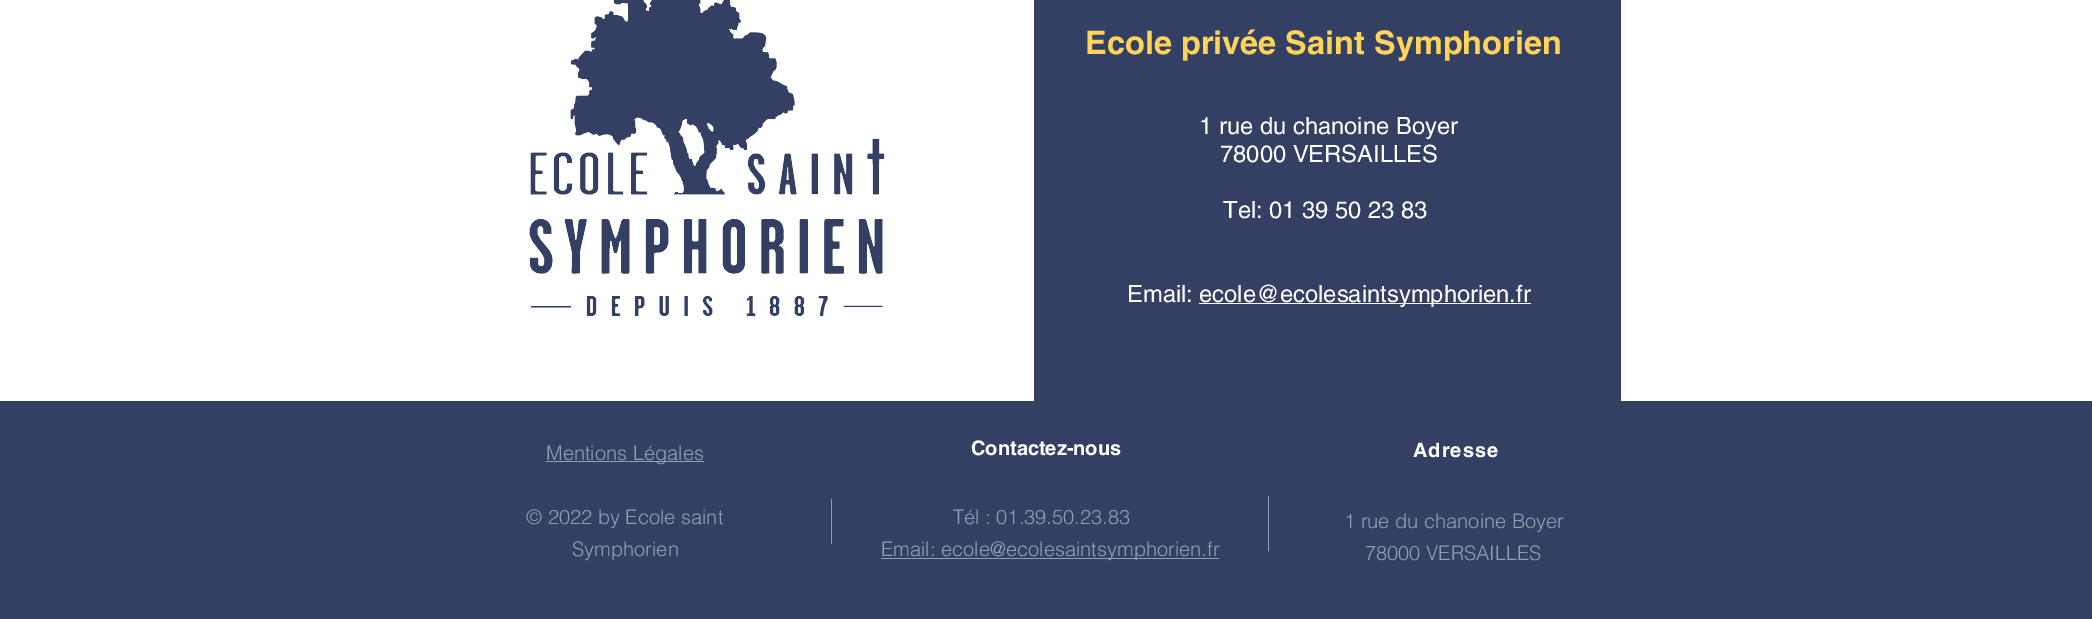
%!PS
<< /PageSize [2092 619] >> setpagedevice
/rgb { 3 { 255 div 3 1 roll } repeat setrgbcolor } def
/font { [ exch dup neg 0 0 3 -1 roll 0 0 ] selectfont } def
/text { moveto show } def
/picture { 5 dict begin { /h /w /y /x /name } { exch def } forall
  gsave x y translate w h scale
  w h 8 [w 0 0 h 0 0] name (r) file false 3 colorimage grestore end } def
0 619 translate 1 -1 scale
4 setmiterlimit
255 255 255 rgb
0 0 2092 619 rectfill
(img_01.rgb) 529 0 356 317 picture
52 63 100 rgb
1034 0 587 401 rectfill
255 255 255 rgb
1199 303 332 1 rectfill
52 63 100 rgb
0 401 2092 218 rectfill
149 156 178 rgb
546 461 158 1 rectfill
831 499 1 45 rectfill
881 558 338 1 rectfill
1268 496 1 55 rectfill
/helvetica-Bold 32.5 font
255 212 90 rgb
(Ecole privée Saint Symphorien) 1085 54 text
/helvetica-Regular 23.75 font
255 255 255 rgb
(1 rue du chanoine Boyer) 1199 134 text
(78000 VERSAILLES) 1220 162 text
(Tel: 01 39 50 23 83) 1223 218 text
(Email:) 1127 302 text
(ecole@ecolesaintsymphorien.fr) 1199 302 text
/helvetica-Light 20 font
149 156 178 rgb
(Mentions Légales) 546 460 text
/helvetica-Bold 20 font
255 255 255 rgb
(Contactez-nous) 971 455 text
1413 457 moveto 1 0 (Adresse) ashow
/helvetica-Light 20 font
149 156 178 rgb
(© 2022 by Ecole saint) 526 524 text
(Symphorien) 572 556 text
(Tél : 01.39.50.23.83) 953 524 text
(Email: ecole@ecolesaintsymphorien.fr) 881 556 text
(1 rue du chanoine Boyer) 1344 528 text
(78000 VERSAILLES) 1365 560 text
showpage
